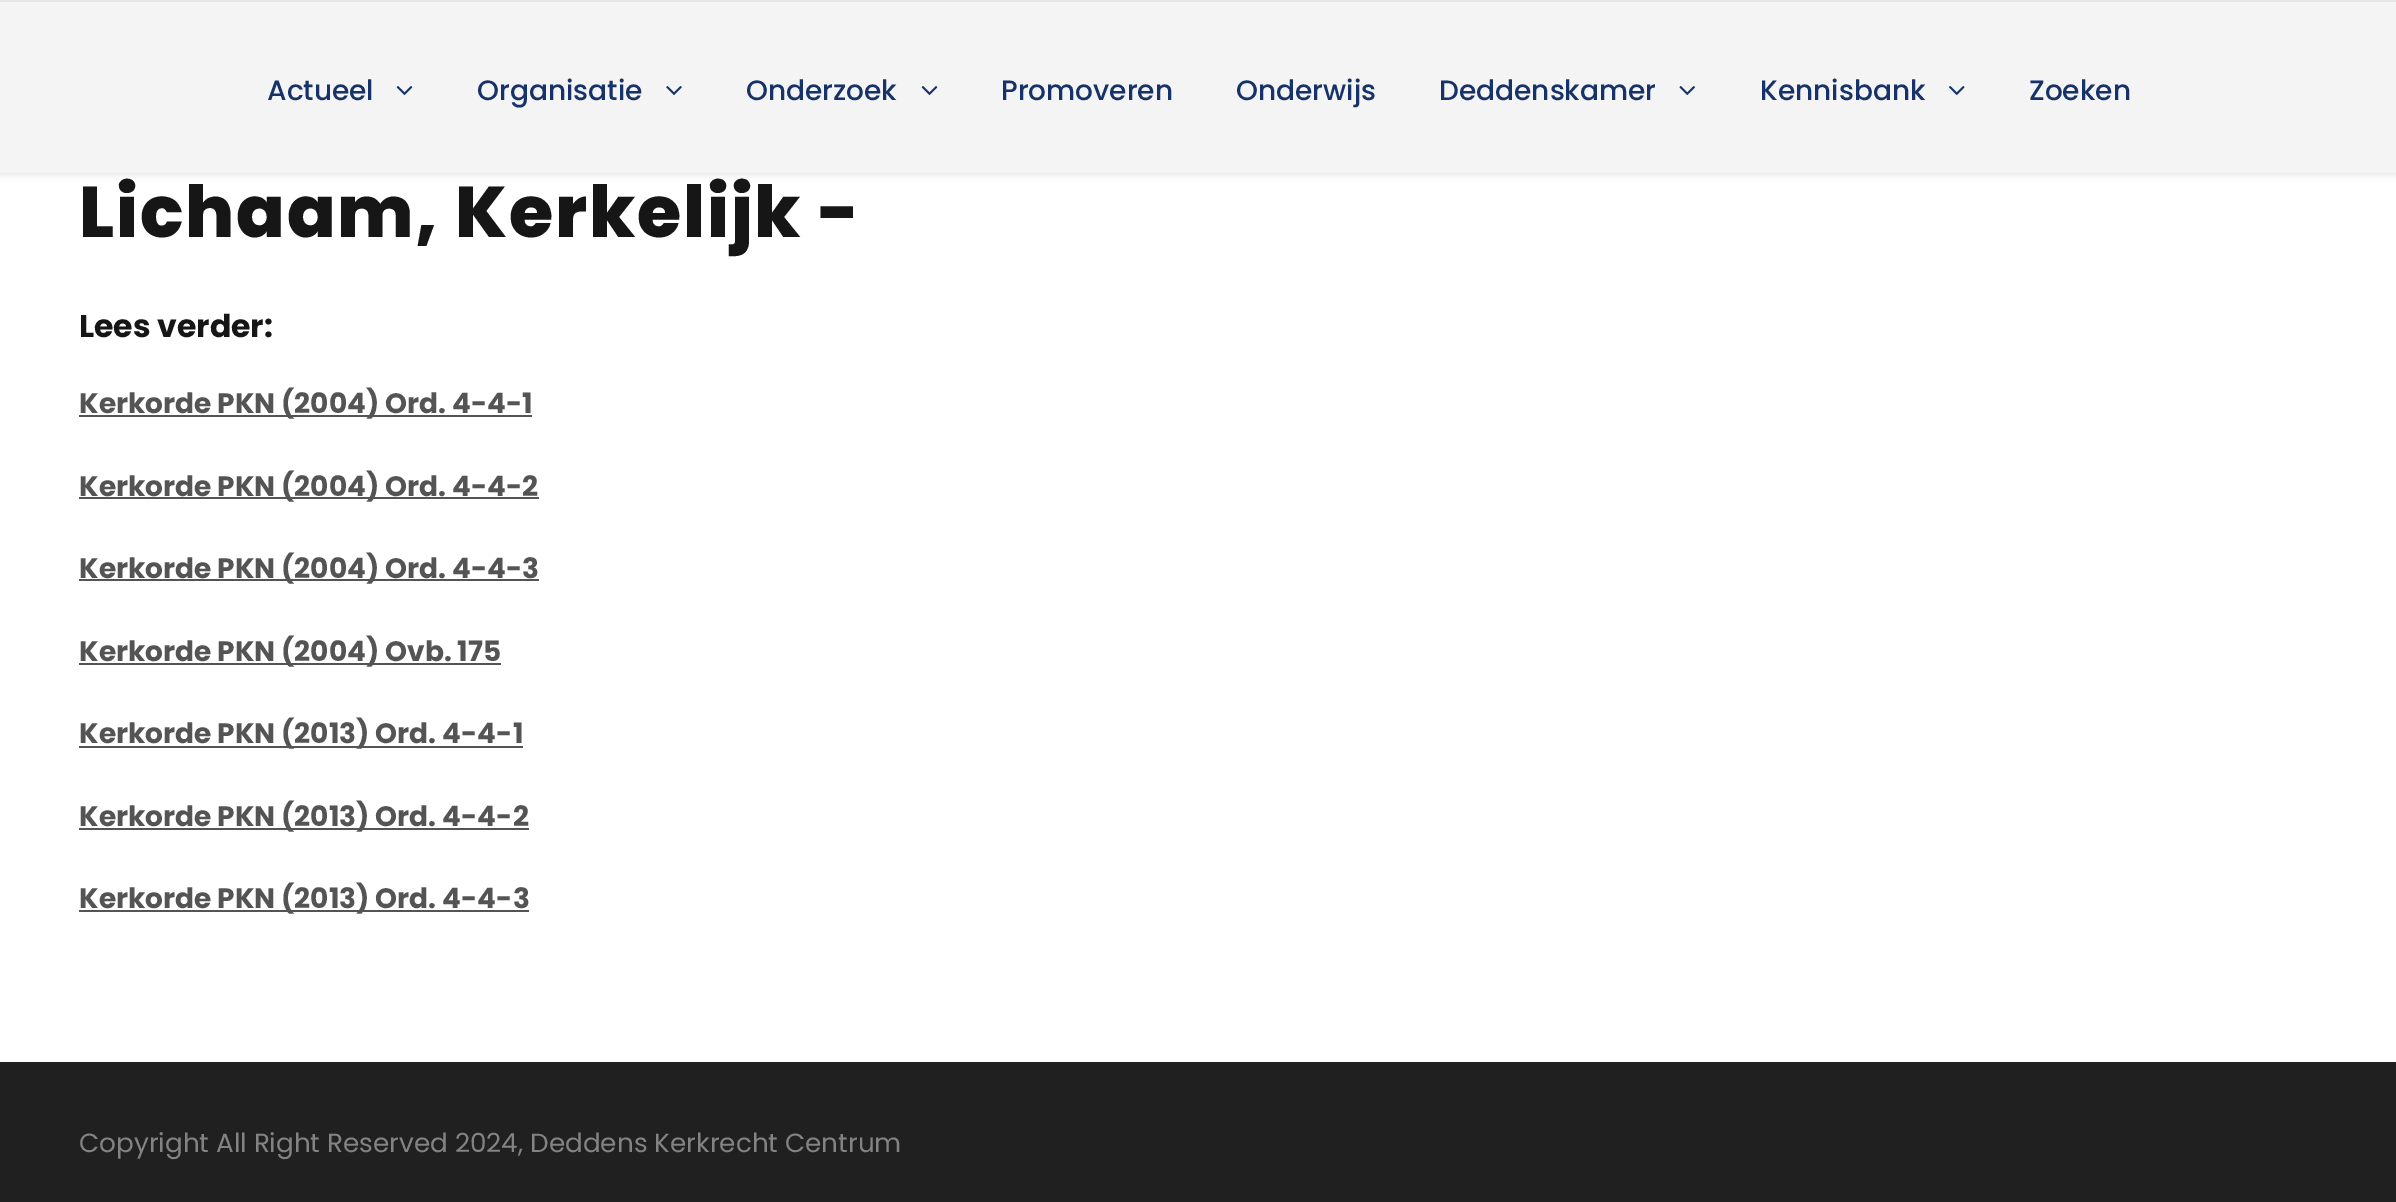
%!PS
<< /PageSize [2396 1202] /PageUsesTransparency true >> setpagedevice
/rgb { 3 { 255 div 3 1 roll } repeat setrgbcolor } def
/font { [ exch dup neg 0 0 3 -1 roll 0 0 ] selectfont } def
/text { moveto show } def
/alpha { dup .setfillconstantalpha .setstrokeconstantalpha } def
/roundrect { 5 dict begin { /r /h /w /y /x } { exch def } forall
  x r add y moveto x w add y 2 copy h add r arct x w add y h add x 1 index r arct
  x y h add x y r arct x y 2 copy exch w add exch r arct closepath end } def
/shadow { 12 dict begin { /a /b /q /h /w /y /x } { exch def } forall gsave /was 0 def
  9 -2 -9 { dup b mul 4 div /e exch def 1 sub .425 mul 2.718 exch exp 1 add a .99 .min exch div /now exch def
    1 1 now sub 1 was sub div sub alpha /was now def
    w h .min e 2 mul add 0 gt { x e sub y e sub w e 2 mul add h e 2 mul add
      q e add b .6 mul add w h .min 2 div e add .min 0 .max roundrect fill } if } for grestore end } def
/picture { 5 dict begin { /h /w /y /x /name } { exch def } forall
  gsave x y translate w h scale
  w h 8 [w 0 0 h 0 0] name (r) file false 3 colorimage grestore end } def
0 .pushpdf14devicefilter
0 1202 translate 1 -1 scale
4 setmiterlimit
255 255 255 rgb
0 0 2396 1202 rectfill
0 0 0 rgb
0 2 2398 173 0 3.5 0.1 shadow
230 230 230 rgb
0 0 2396 2 rectfill
244 244 244 rgb
0 2 2396 171 rectfill
(img_01.rgb) 396 86 17 9 picture
(img_02.rgb) 666 86 16 9 picture
(img_01.rgb) 921 86 17 9 picture
(img_03.rgb) 1679 86 16 9 picture
(img_04.rgb) 1949 86 16 9 picture
84 84 84 rgb
79 415 453 2 rectfill
79 497 460 2 rectfill
79 579 460 2 rectfill
79 663 422 2 rectfill
79 746 444 2 rectfill
79 828 450 2 rectfill
79 910 450 2 rectfill
32 32 32 rgb
0 1062 2396 140 rectfill
/Poppins-Medium 28 font
22 50 105 rgb
(Actueel) 267 100 text
(Organisatie) 477 100 text
(Onderzoek) 746 100 text
(Promoveren) 1001 100 text
(Onderwijs) 1236 100 text
(Deddenskamer) 1439 100 text
(Kennisbank) 1760 100 text
(Zoeken) 2029 100 text
/Poppins-ExtraBold 71.75 font
22 22 22 rgb
79 237 moveto 1.75 0 (Lichaam, Kerkelijk -) ashow
/Poppins-Bold 31.5 font
(Lees verder:) 79 337 text
/Poppins-Bold 28 font
84 84 84 rgb
(Kerkorde PKN \(2004\) Ord. 4-4-1) 79 413 text
(Kerkorde PKN \(2004\) Ord. 4-4-2) 79 496 text
(Kerkorde PKN \(2004\) Ord. 4-4-3) 79 578 text
(Kerkorde PKN \(2004\) Ovb. 175) 79 661 text
(Kerkorde PKN \(2013\) Ord. 4-4-1) 79 743 text
(Kerkorde PKN \(2013\) Ord. 4-4-2) 79 826 text
(Kerkorde PKN \(2013\) Ord. 4-4-3) 79 908 text
/Poppins-Regular 26.25 font
131 131 131 rgb
(Copyright All Right Reserved 2024, Deddens Kerkrecht Centrum) 79 1152 text
.poppdf14devicefilter showpage
